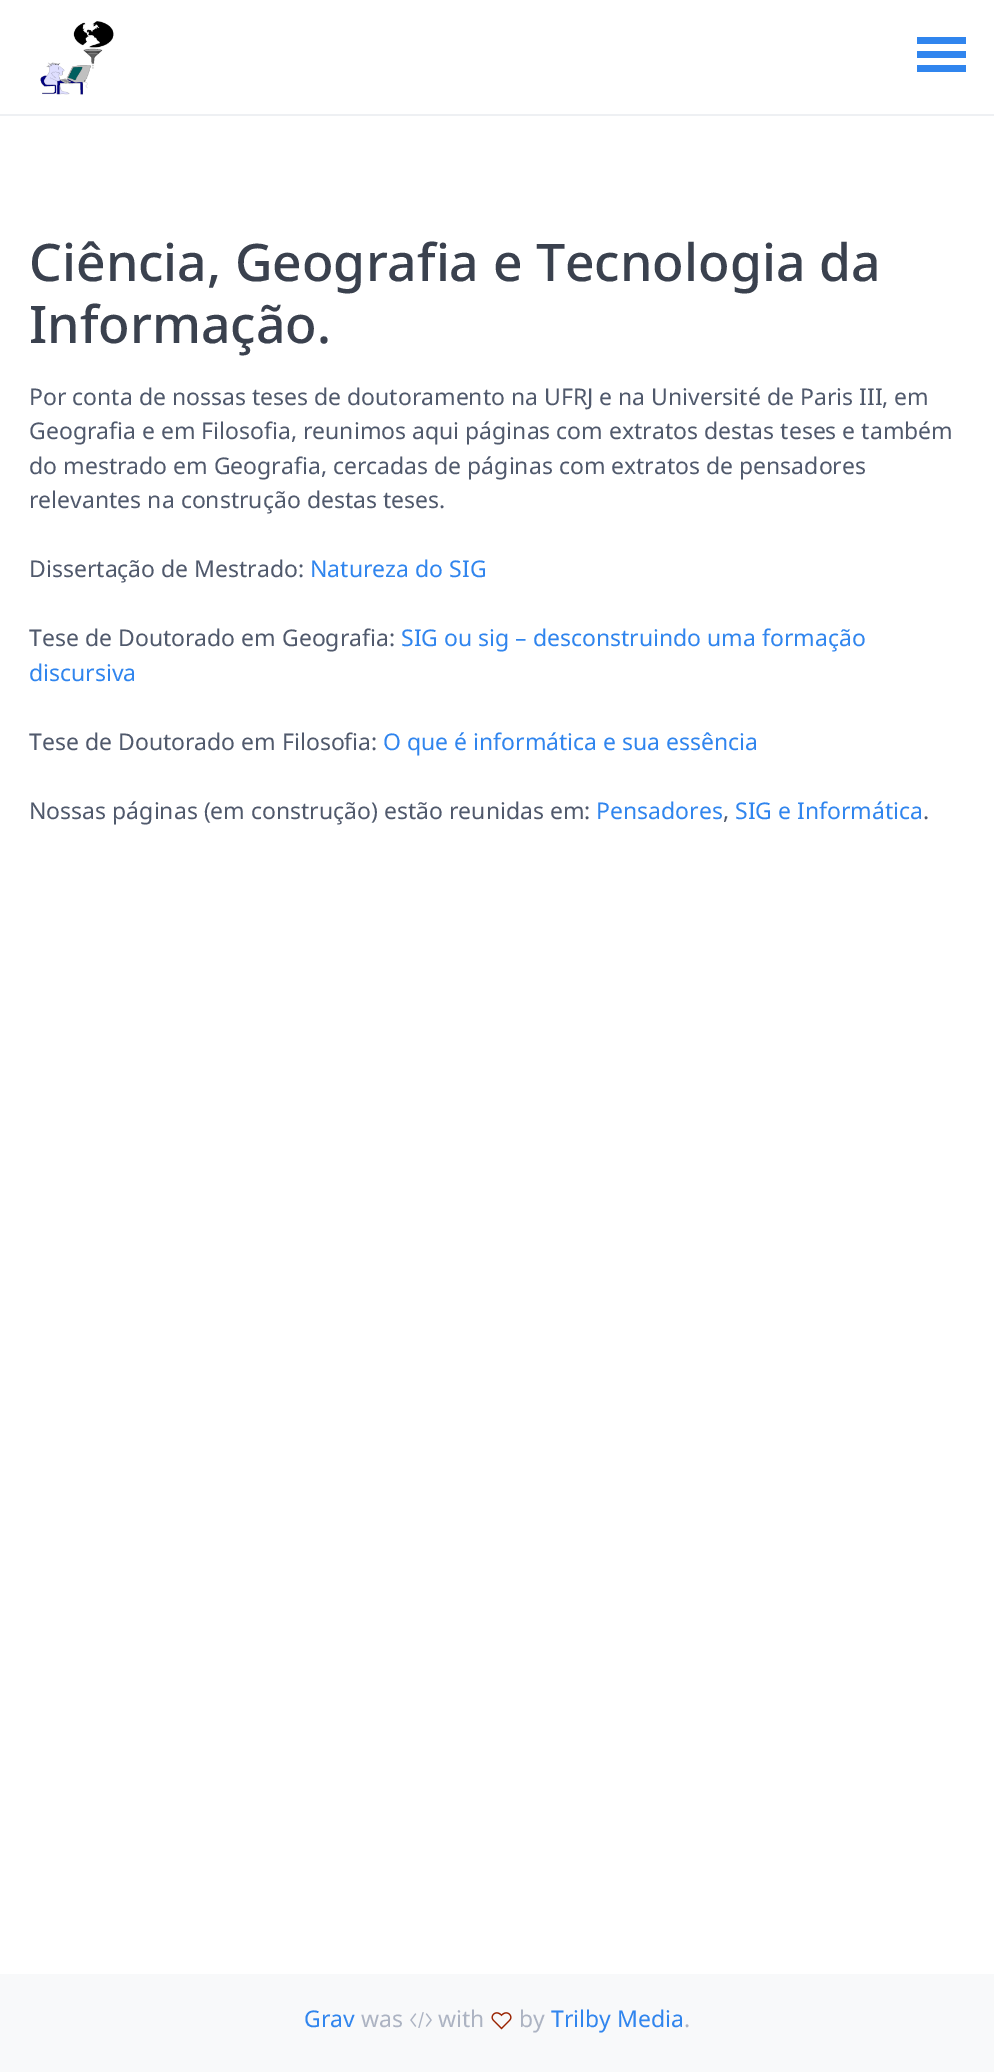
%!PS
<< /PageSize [994 2072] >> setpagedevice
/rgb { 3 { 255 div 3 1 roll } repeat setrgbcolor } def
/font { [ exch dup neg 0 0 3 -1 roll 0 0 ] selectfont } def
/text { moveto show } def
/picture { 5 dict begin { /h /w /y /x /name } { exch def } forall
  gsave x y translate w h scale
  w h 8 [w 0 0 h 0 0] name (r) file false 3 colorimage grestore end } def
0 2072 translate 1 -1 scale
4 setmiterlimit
255 255 255 rgb
0 0 994 2072 rectfill
238 240 243 rgb
0 114 994 2 rectfill
(img_01.rgb) 40 21 74 74 picture
48 133 238 rgb
917 37 49 7 rectfill
917 51 49 7 rectfill
917 65 49 7 rectfill
248 249 250 rgb
0 1974 994 98 rectfill
(img_02.rgb) 410 2012 22 16 picture
(img_03.rgb) 491 2012 21 18 picture
/NotoSans-Medium 51.75 font
58 65 78 rgb
(Ciência, Geografia e Tecnologia da) 29 281 text
(Informação.) 29 343 text
/NotoSans-Regular 23 font
80 89 108 rgb
(Por conta de nossas teses de doutoramento na UFRJ e na Université de Paris III, em) 29 405 text
(Geografia e em Filosofia, reunimos aqui páginas com extratos destas teses e também) 29 439 text
(do mestrado em Geografia, cercadas de páginas com extratos de pensadores) 29 474 text
(relevantes na construção destas teses.) 29 508 text
(Dissertação de Mestrado:) 29 577 text
48 133 238 rgb
(Natureza do SIG) 310 577 text
80 89 108 rgb
(Tese de Doutorado em Geografia:) 29 646 text
48 133 238 rgb
(SIG ou sig – desconstruindo uma formação) 401 646 text
(discursiva) 29 681 text
80 89 108 rgb
(Tese de Doutorado em Filosofia:) 29 750 text
48 133 238 rgb
(O que é informática e sua essência) 383 750 text
80 89 108 rgb
(Nossas páginas \(em construção\) estão reunidas em:) 29 819 text
48 133 238 rgb
(Pensadores) 596 819 text
80 89 108 rgb
(,) 723 819 text
48 133 238 rgb
(SIG e Informática) 735 819 text
80 89 108 rgb
(.) 923 819 text
48 133 238 rgb
(Grav) 304 2027 text
172 179 194 rgb
(was) 361 2027 text
(with) 438 2027 text
(by) 519 2027 text
48 133 238 rgb
(Trilby Media) 551 2027 text
172 179 194 rgb
(.) 684 2027 text
showpage
